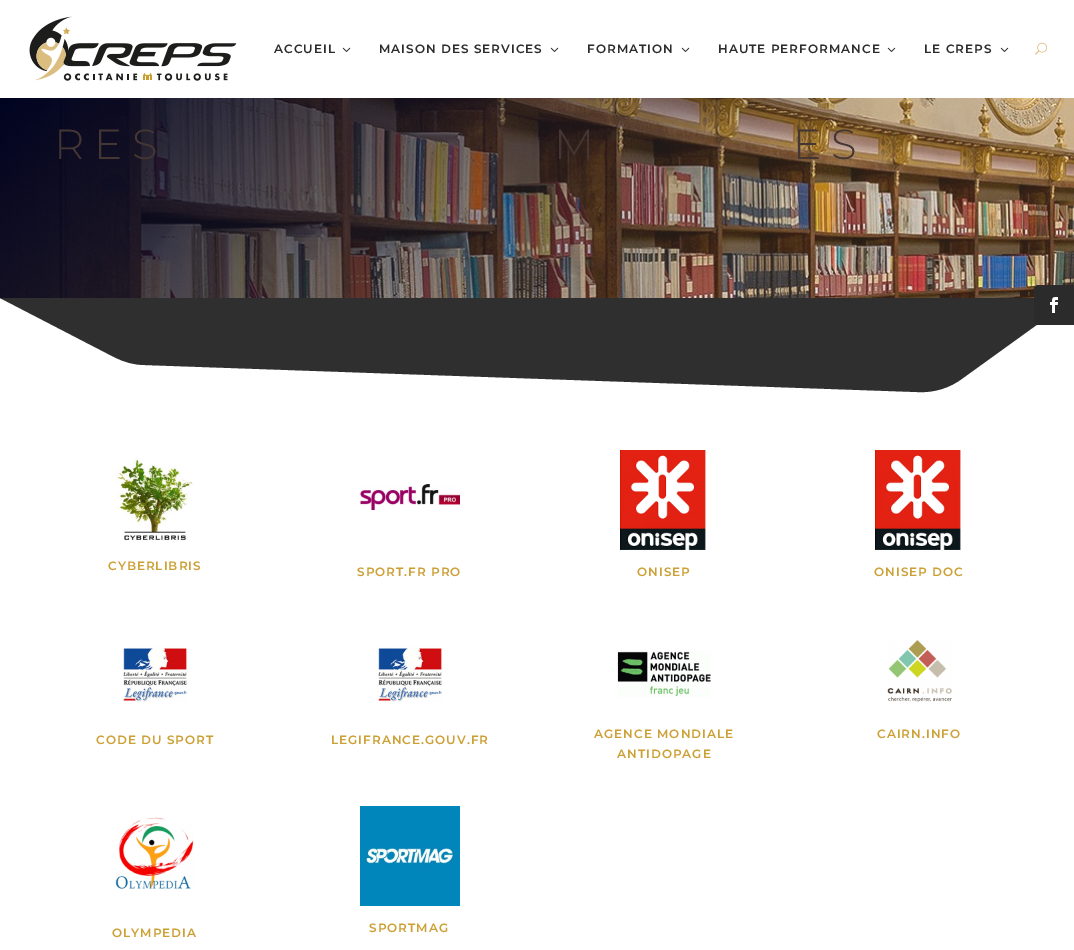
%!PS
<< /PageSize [1074 950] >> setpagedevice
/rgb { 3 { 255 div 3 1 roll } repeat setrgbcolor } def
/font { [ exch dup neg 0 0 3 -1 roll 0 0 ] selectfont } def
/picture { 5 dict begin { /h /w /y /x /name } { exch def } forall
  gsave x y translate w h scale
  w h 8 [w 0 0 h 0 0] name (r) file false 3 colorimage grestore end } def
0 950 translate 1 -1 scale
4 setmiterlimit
255 255 255 rgb
0 0 1074 950 rectfill
(img_01.rgb) 29 16 208 65 picture
(img_02.rgb) 342 47 9 5 picture
(img_02.rgb) 550 47 9 5 picture
(img_02.rgb) 681 47 9 5 picture
(img_02.rgb) 887 47 9 5 picture
(img_02.rgb) 1000 47 9 5 picture
(img_03.rgb) 1035 42 12 13 picture
(img_04.rgb) 0 98 1074 200 picture
47 47 47 rgb
1074 298 moveto -111 80 rlineto -13 10 -29 15 -46 14 rcurveto -772 -27 rlineto -11 0 -21 -3 -31 -8 rcurveto -114 -59 rlineto closepath fill
(img_05.rgb) 115 458 78 83 picture
(img_06.rgb) 360 484 100 26 picture
(img_07.rgb) 620 450 86 100 picture
(img_07.rgb) 875 450 86 100 picture
(img_08.rgb) 617 651 94 46 picture
(img_09.rgb) 887 640 65 62 picture
(img_10.rgb) 122 647 66 55 picture
(img_10.rgb) 377 647 66 55 picture
(img_11.rgb) 115 817 79 72 picture
(img_12.rgb) 360 806 100 100 picture
43 43 43 rgb
1038 285 moveto 36 0 rlineto 0 40 rlineto -36 0 rlineto -2 0 -4 -2 -4 -4 rcurveto 0 -32 rlineto 0 -2 2 -4 4 -4 rcurveto closepath fill
(img_13.rgb) 1050 297 8 16 picture
/Montserrat-SemiBold 12 font
274 53 moveto 1 0 (ACCUEIL) ashow
379 53 moveto 1 0 (MAISON DES SERVICES) ashow
587 53 moveto 1 0 (FORMATION) ashow
718 53 moveto 1 0 (HAUTE PERFORMANCE) ashow
924 53 moveto 1 0 (LE CREPS) ashow
/Montserrat-Light 42 font
68 54 50 rgb
54 159 moveto 10 0 (RES) ashow
554 159 moveto 10 0 (M) ashow
793 159 moveto 10 0 (ES) ashow
/Montserrat-SemiBold 12 font
204 160 53 rgb
108 570 moveto 1 0 (CYBERLIBRIS) ashow
357 576 moveto 1 0 (SPORT.FR PRO) ashow
637 576 moveto 1 0 (ONISEP) ashow
874 576 moveto 1 0 (ONISEP DOC) ashow
594 738 moveto 1 0 (AGENCE MONDIALE) ashow
617 758 moveto 1 0 (ANTIDOPAGE) ashow
877 738 moveto 1 0 (CAIRN.INFO) ashow
96 744 moveto 1 0 (CODE DU SPORT) ashow
331 744 moveto 1 0 (LEGIFRANCE.GOUV.FR) ashow
112 937 moveto 1 0 (OLYMPEDIA) ashow
369 932 moveto 1 0 (SPORTMAG) ashow
showpage
